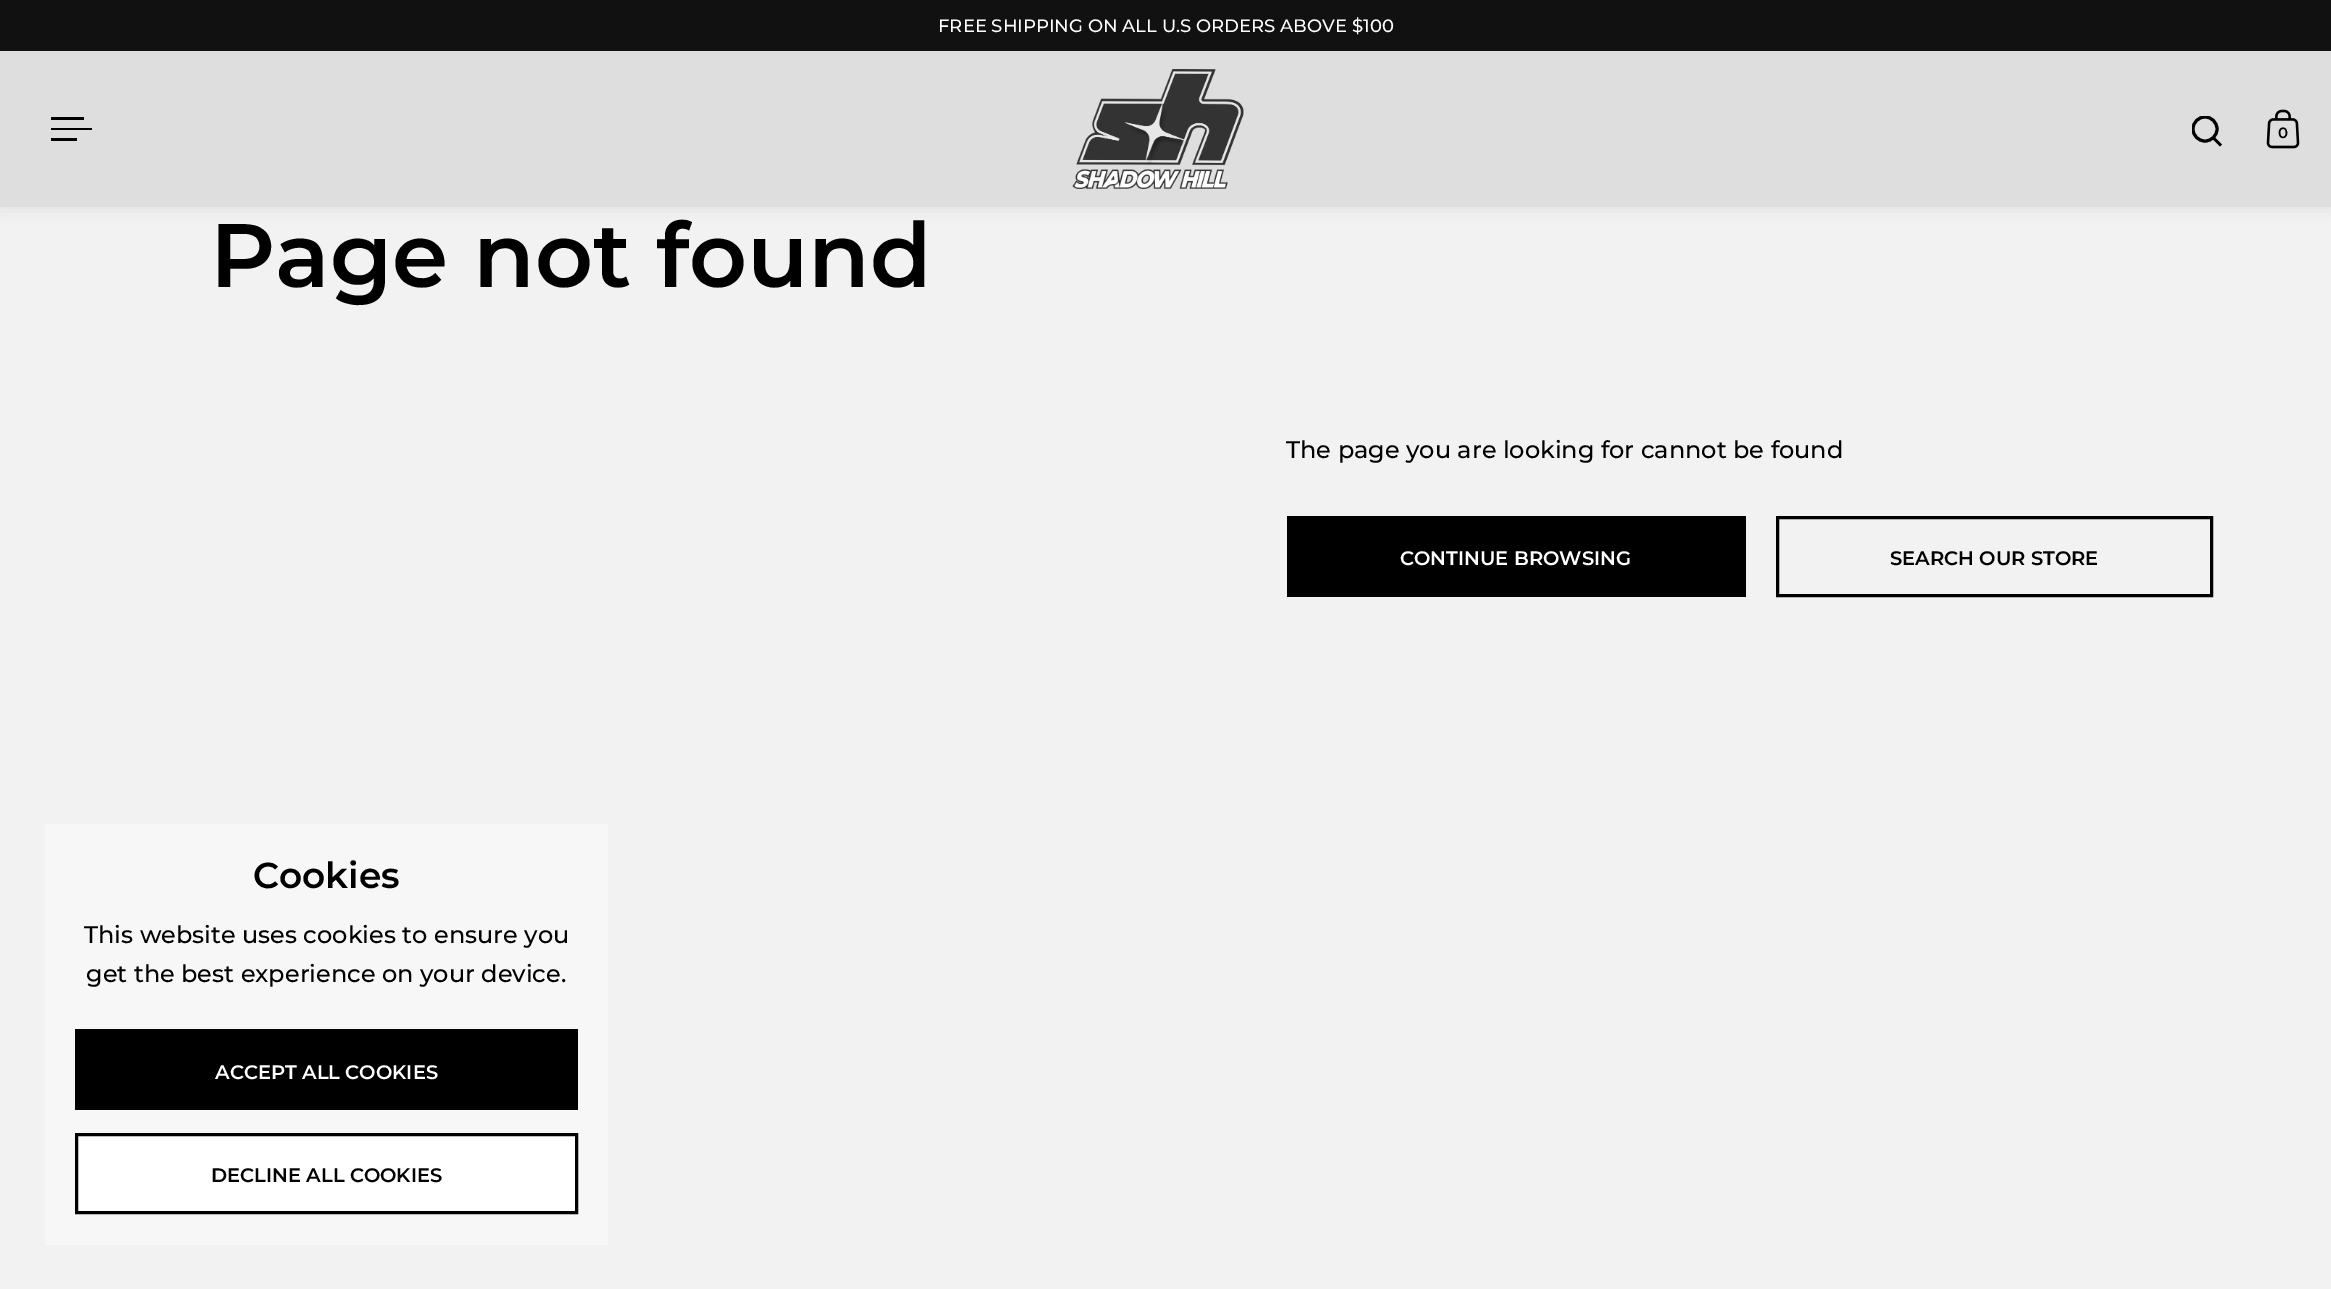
%!PS
<< /PageSize [2331 1289] /PageUsesTransparency true >> setpagedevice
/rgb { 3 { 255 div 3 1 roll } repeat setrgbcolor } def
/font { [ exch dup neg 0 0 3 -1 roll 0 0 ] selectfont } def
/text { moveto show } def
/alpha { dup .setfillconstantalpha .setstrokeconstantalpha } def
/circle { newpath 0 360 arc closepath } def
/roundrect { 5 dict begin { /r /h /w /y /x } { exch def } forall
  x r add y moveto x w add y 2 copy h add r arct x w add y h add x 1 index r arct
  x y h add x y r arct x y 2 copy exch w add exch r arct closepath end } def
/shadow { 12 dict begin { /a /b /q /h /w /y /x } { exch def } forall gsave /was 0 def
  9 -2 -9 { dup b mul 4 div /e exch def 1 sub .425 mul 2.718 exch exp 1 add a .99 .min exch div /now exch def
    1 1 now sub 1 was sub div sub alpha /was now def
    w h .min e 2 mul add 0 gt { x e sub y e sub w e 2 mul add h e 2 mul add
      q e add b .6 mul add w h .min 2 div e add .min 0 .max roundrect fill } if } for grestore end } def
/picture { 5 dict begin { /h /w /y /x /name } { exch def } forall
  gsave x y translate w h scale
  w h 8 [w 0 0 h 0 0] name (r) file false 3 colorimage grestore end } def
0 .pushpdf14devicefilter
0 1289 translate 1 -1 scale
4 setmiterlimit
242 242 242 rgb
0 0 2331 1289 rectfill
17 17 17 rgb
0 0 2331 51 rectfill
0 0 0 rgb
0 51 2331 156 0 7.5 0.08 shadow
223 222 222 rgb
0 51 2331 156 rectfill
0 0 0 rgb
51 117 33 3 rectfill
51 128 41 2 rectfill
51 138 26 3 rectfill
(img_01.rgb) 1072 69 172 120 picture
gsave
2192 116 31 31 rectclip
3 setlinewidth
2205 129 12 circle stroke
grestore
2213 139.5 moveto 2 -2 rlineto 7 7 rlineto -2 2 rlineto closepath fill
(img_02.rgb) 2266 109 34 40 picture
1287 516 459 81 rectfill
3 setlinewidth
1777.5 517.5 434 78 rectstroke
247 247 247 rgb
45 824 563 421 rectfill
0 0 0 rgb
75 1029 503 81 rectfill
255 255 255 rgb
76.5 1134.5 moveto 500 0 rlineto 0 78 rlineto -500 0 rlineto closepath gsave fill grestore
0 0 0 rgb
stroke
/Montserrat-Medium 18 font
255 255 255 rgb
(FREE SHIPPING ON ALL U.S ORDERS ABOVE $100) 938 32 text
/Montserrat-SemiBold 15 font
0 0 0 rgb
(0) 2278 138 text
/Montserrat-SemiBold 90 font
(Page not found) 210 287 text
/Montserrat-Medium 24 font
(The page you are looking for cannot be found) 1286 458 text
/Montserrat-SemiBold 19.5 font
255 255 255 rgb
(CONTINUE BROWSING) 1400 565 text
0 0 0 rgb
(SEARCH OUR STORE) 1890 565 text
/Montserrat-SemiBold 36 font
(Cookies) 253 888 text
/Montserrat-Medium 24 font
(This website uses cookies to ensure you) 84 943 text
(get the best experience on your device.) 86 982 text
/Montserrat-SemiBold 19.5 font
255 255 255 rgb
(ACCEPT ALL COOKIES) 215 1079 text
0 0 0 rgb
(DECLINE ALL COOKIES) 211 1182 text
.poppdf14devicefilter showpage
